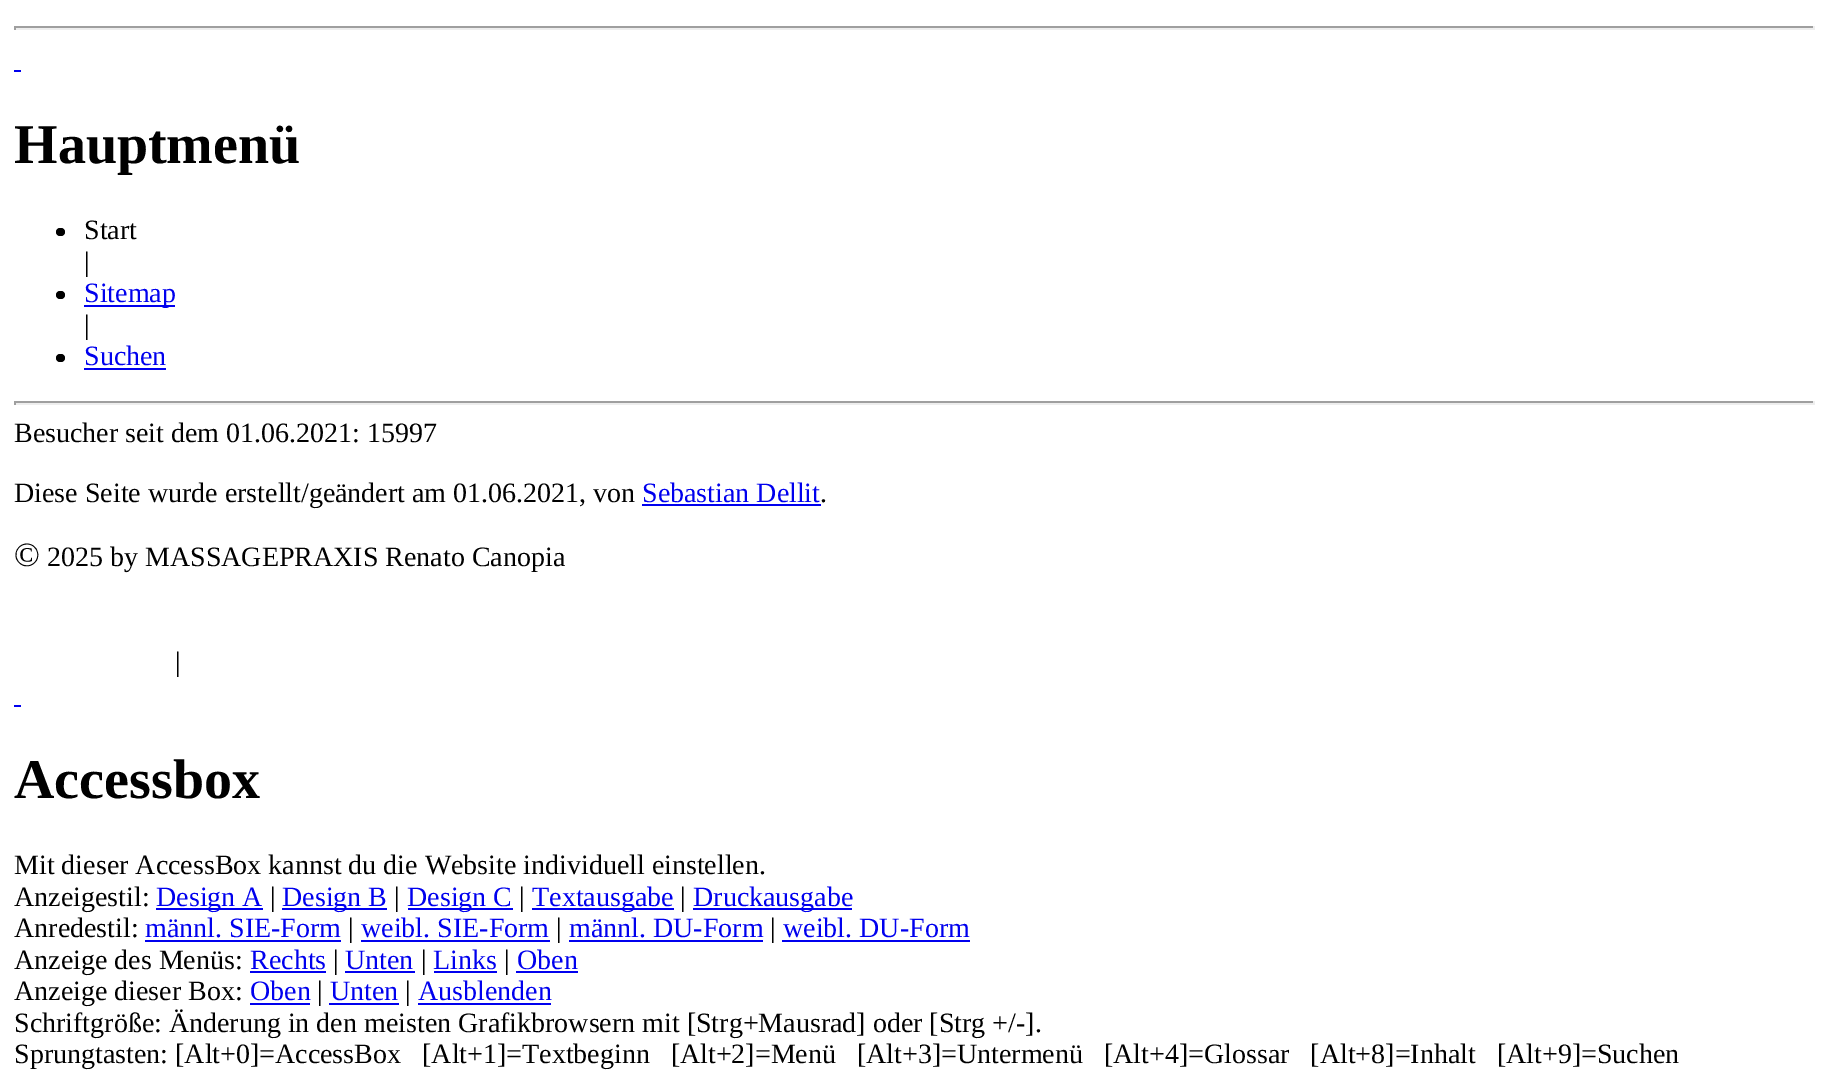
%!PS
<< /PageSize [1828 1084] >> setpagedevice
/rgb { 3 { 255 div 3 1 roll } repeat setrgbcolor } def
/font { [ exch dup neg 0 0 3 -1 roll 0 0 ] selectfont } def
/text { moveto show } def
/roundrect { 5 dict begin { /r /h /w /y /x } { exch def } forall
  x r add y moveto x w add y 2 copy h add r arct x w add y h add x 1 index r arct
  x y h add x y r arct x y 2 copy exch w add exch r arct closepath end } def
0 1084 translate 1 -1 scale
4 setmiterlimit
255 255 255 rgb
0 0 1828 1084 rectfill
159 159 159 rgb
14 26 1801 2 rectfill
238 238 238 rgb
1813 26 2 4 rectfill
14 28 1801 2 rectfill
159 159 159 rgb
14 26 2 4 rectfill
0 0 238 rgb
14 70 7 2 rectfill
0 0 0 rgb
56 228 9 8 4 roundrect fill
56 291 9 8 4 roundrect fill
0 0 238 rgb
84 305 91 2 rectfill
0 0 0 rgb
56 354 9 8 4 roundrect fill
0 0 238 rgb
84 368 82 2 rectfill
159 159 159 rgb
14 401 1801 2 rectfill
238 238 238 rgb
1813 401 2 4 rectfill
14 403 1801 2 rectfill
159 159 159 rgb
14 401 2 4 rectfill
0 0 238 rgb
642 504 179 2 rectfill
14 705 7 2 rectfill
156 908 107 2 rectfill
282 908 105 2 rectfill
408 908 105 2 rectfill
532 908 142 2 rectfill
693 908 159 2 rectfill
145 940 196 2 rectfill
361 940 189 2 rectfill
569 940 194 2 rectfill
782 940 188 2 rectfill
250 971 76 2 rectfill
345 971 70 2 rectfill
434 971 63 2 rectfill
516 971 62 2 rectfill
250 1003 60 2 rectfill
329 1003 70 2 rectfill
418 1003 133 2 rectfill
/LiberationSerif-Bold 56 font
0 0 0 rgb
(Hauptmenü) 14 163 text
/LiberationSerif-Regular 28 font
(Start) 84 239 text
(|) 84 271 text
0 0 238 rgb
(Sitemap) 84 302 text
0 0 0 rgb
(|) 84 334 text
0 0 238 rgb
(Suchen) 84 365 text
0 0 0 rgb
(Besucher seit dem 01.06.2021: 15997) 14 442 text
(Diese Seite wurde erstellt/geändert am 01.06.2021, von) 14 502 text
0 0 238 rgb
(Sebastian Dellit) 642 502 text
0 0 0 rgb
(.) 820 502 text
/LiberationSerif-Regular 34 font
(©) 14 566 text
/LiberationSerif-Regular 28 font
(2025 by MASSAGEPRAXIS Renato Canopia) 47 566 text
(|) 175 671 text
/LiberationSerif-Bold 56 font
(Accessbox) 14 798 text
/LiberationSerif-Regular 28 font
(Mit dieser AccessBox kannst du die Website individuell einstellen.) 14 874 text
(Anzeigestil:) 14 906 text
0 0 238 rgb
(Design A) 156 906 text
0 0 0 rgb
(|) 270 906 text
0 0 238 rgb
(Design B) 282 906 text
0 0 0 rgb
(|) 394 906 text
0 0 238 rgb
(Design C) 407 906 text
0 0 0 rgb
(|) 519 906 text
0 0 238 rgb
(Textausgabe) 532 906 text
0 0 0 rgb
(|) 680 906 text
0 0 238 rgb
(Druckausgabe) 693 906 text
0 0 0 rgb
(Anredestil:) 14 937 text
0 0 238 rgb
(männl. SIE-Form) 145 937 text
0 0 0 rgb
(|) 348 937 text
0 0 238 rgb
(weibl. SIE-Form) 361 937 text
0 0 0 rgb
(|) 556 937 text
0 0 238 rgb
(männl. DU-Form) 569 937 text
0 0 0 rgb
(|) 770 937 text
0 0 238 rgb
(weibl. DU-Form) 783 937 text
0 0 0 rgb
(Anzeige des Menüs:) 14 969 text
0 0 238 rgb
(Rechts) 250 969 text
0 0 0 rgb
(|) 333 969 text
0 0 238 rgb
(Unten) 345 969 text
0 0 0 rgb
(|) 421 969 text
0 0 238 rgb
(Links) 433 969 text
0 0 0 rgb
(|) 504 969 text
0 0 238 rgb
(Oben) 517 969 text
0 0 0 rgb
(Anzeige dieser Box:) 14 1000 text
0 0 238 rgb
(Oben) 250 1000 text
0 0 0 rgb
(|) 317 1000 text
0 0 238 rgb
(Unten) 330 1000 text
0 0 0 rgb
(|) 405 1000 text
0 0 238 rgb
(Ausblenden) 418 1000 text
0 0 0 rgb
(Schriftgröße: Änderung in den meisten Grafikbrowsern mit [Strg+Mausrad] oder [Strg +/-].) 14 1032 text
(Sprungtasten: [Alt+0]=AccessBox) 14 1063 text
([Alt+1]=Textbeginn   [Alt+2]=Menü   [Alt+3]=Untermenü   [Alt+4]=Glossar   [Alt+8]=Inhalt   [Alt+9]=Suchen) 422 1063 text
showpage
